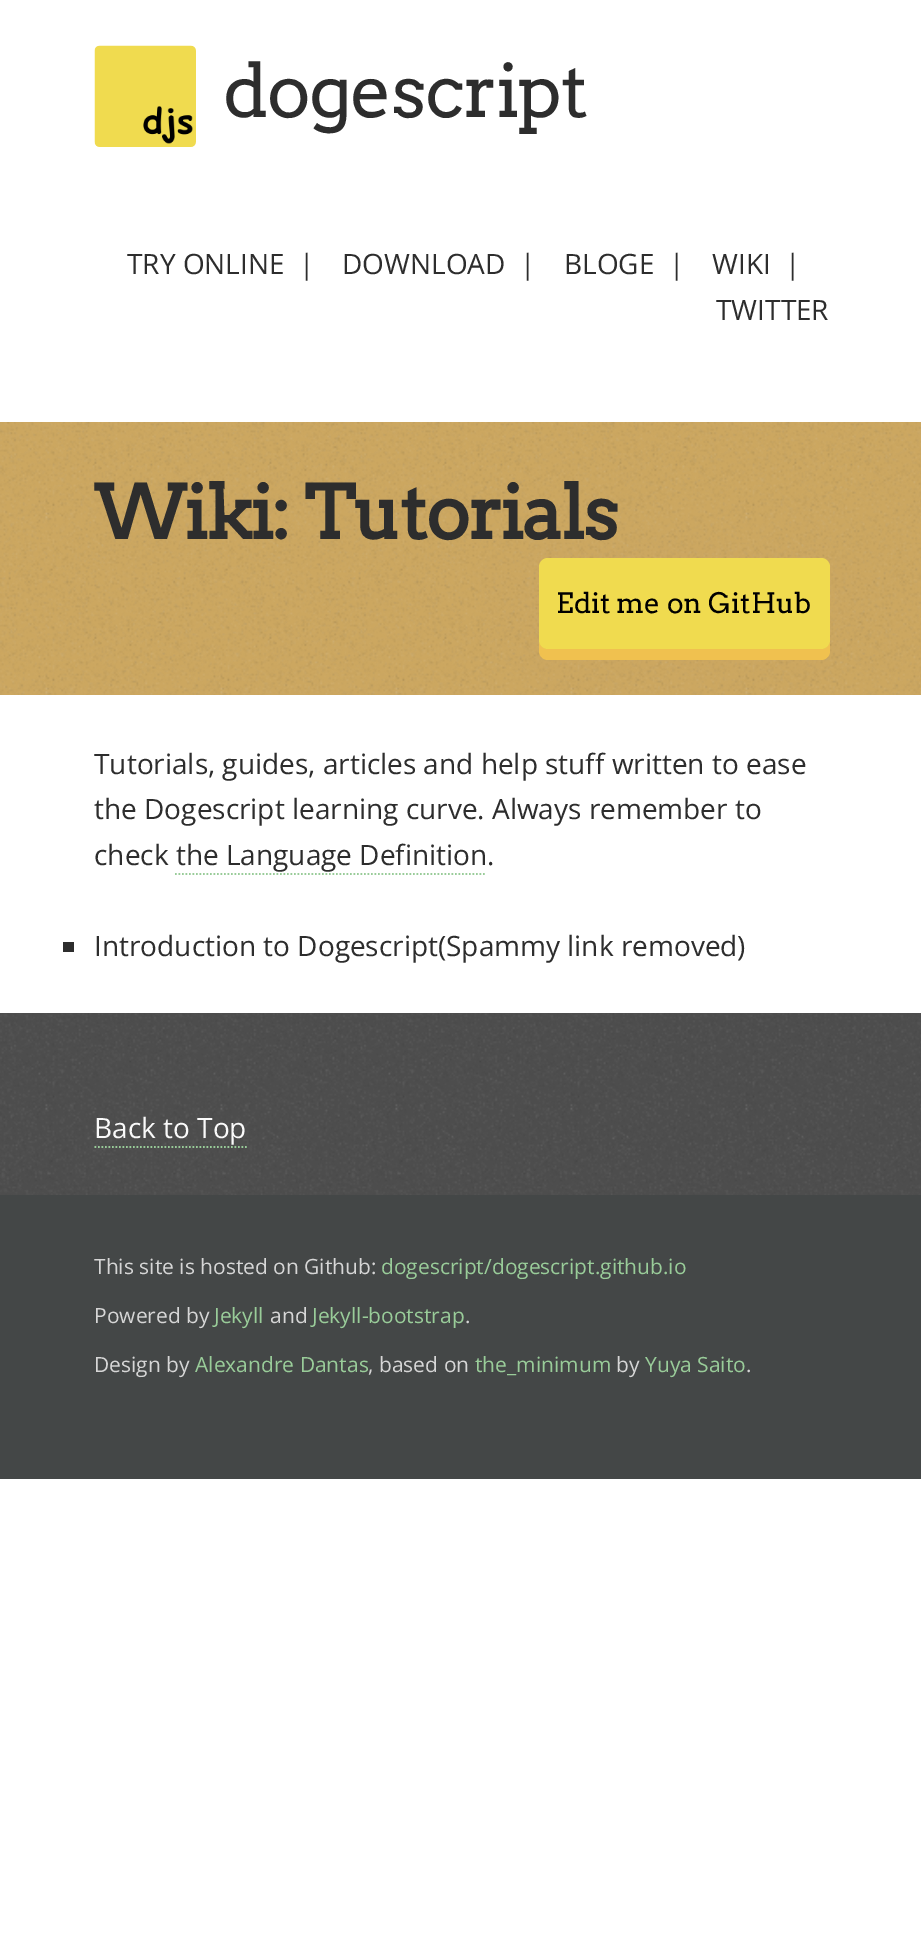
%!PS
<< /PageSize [921 1936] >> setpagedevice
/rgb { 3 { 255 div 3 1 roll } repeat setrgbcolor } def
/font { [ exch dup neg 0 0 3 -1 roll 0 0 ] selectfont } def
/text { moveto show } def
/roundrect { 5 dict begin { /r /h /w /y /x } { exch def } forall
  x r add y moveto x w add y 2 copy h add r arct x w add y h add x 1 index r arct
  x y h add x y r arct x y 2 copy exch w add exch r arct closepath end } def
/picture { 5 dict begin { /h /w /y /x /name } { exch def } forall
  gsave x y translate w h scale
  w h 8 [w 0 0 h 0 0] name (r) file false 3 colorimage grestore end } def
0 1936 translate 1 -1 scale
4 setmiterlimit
255 255 255 rgb
0 0 921 1936 rectfill
(img_01.rgb) 94 45 102 102 picture
204 167 96 rgb
0 422 921 273 rectfill
(img_02.rgb) 0 422 921 273 picture
240 193 79 rgb
539 640 moveto 0 11 rlineto 0 5 4 9 9 9 rcurveto 273 0 rlineto 5 0 9 -4 9 -9 rcurveto 0 -73 rlineto 0 -3 rlineto 0 65 rlineto 0 5 -4 9 -9 9 rcurveto -273 0 rlineto -5 0 -9 -4 -9 -9 rcurveto closepath fill
240 219 79 rgb
539 558 291 91 9 roundrect fill
153 204 153 rgb
1.8 setlinewidth
[1.75 1.75] 0 setdash
175 874 moveto 311.5 0 rlineto stroke
45 45 45 rgb
63 942 11 10 rectfill
77 77 77 rgb
0 1013 921 182 rectfill
(img_03.rgb) 0 1013 921 182 picture
153 204 153 rgb
94.5 1147 moveto 152.5 0 rlineto stroke
68 71 71 rgb
0 1195 921 284 rectfill
/Arvo-Regular 73.5 font
45 45 45 rgb
223 117 moveto -1.75 0 (dogescript) ashow
/OpenSans-Regular 28 font
(TRY ONLINE) 127 274 text
(|) 299 274 text
(DOWNLOAD) 342 274 text
(|) 520 274 text
(BLOGE) 564 274 text
(|) 669 274 text
(WIKI) 712 274 text
(|) 785 274 text
(TWITTER) 716 320 text
/Arvo-Bold 73.5 font
94 539 moveto -1.75 0 (Wiki: Tutorials) ashow
/Arvo-Regular 28 font
0 0 0 rgb
(Edit me on GitHub) 556 613 text
/OpenSans-Regular 28 font
45 45 45 rgb
(Tutorials, guides, articles and help stuff written to ease) 94 774 text
(the Dogescript learning curve. Always remember to) 94 819 text
(check the Language Definition.) 94 865 text
(Introduction to Dogescript\(Spammy link removed\)) 94 956 text
250 250 250 rgb
(Back to Top) 94 1138 text
/OpenSans-Regular 21 font
214 214 214 rgb
(This site is hosted on Github:) 94 1274 text
153 204 153 rgb
(dogescript/dogescript.github.io) 381 1274 text
214 214 214 rgb
(Powered by) 94 1323 text
153 204 153 rgb
(Jekyll) 214 1323 text
214 214 214 rgb
(and) 270 1323 text
153 204 153 rgb
(Jekyll-bootstrap) 312 1323 text
214 214 214 rgb
(.) 465 1323 text
(Design by) 94 1372 text
153 204 153 rgb
(Alexandre Dantas) 195 1372 text
214 214 214 rgb
(, based on) 368 1372 text
153 204 153 rgb
(the_minimum) 475 1372 text
214 214 214 rgb
(by) 616 1372 text
153 204 153 rgb
(Yuya Saito) 645 1372 text
214 214 214 rgb
(.) 746 1372 text
showpage
